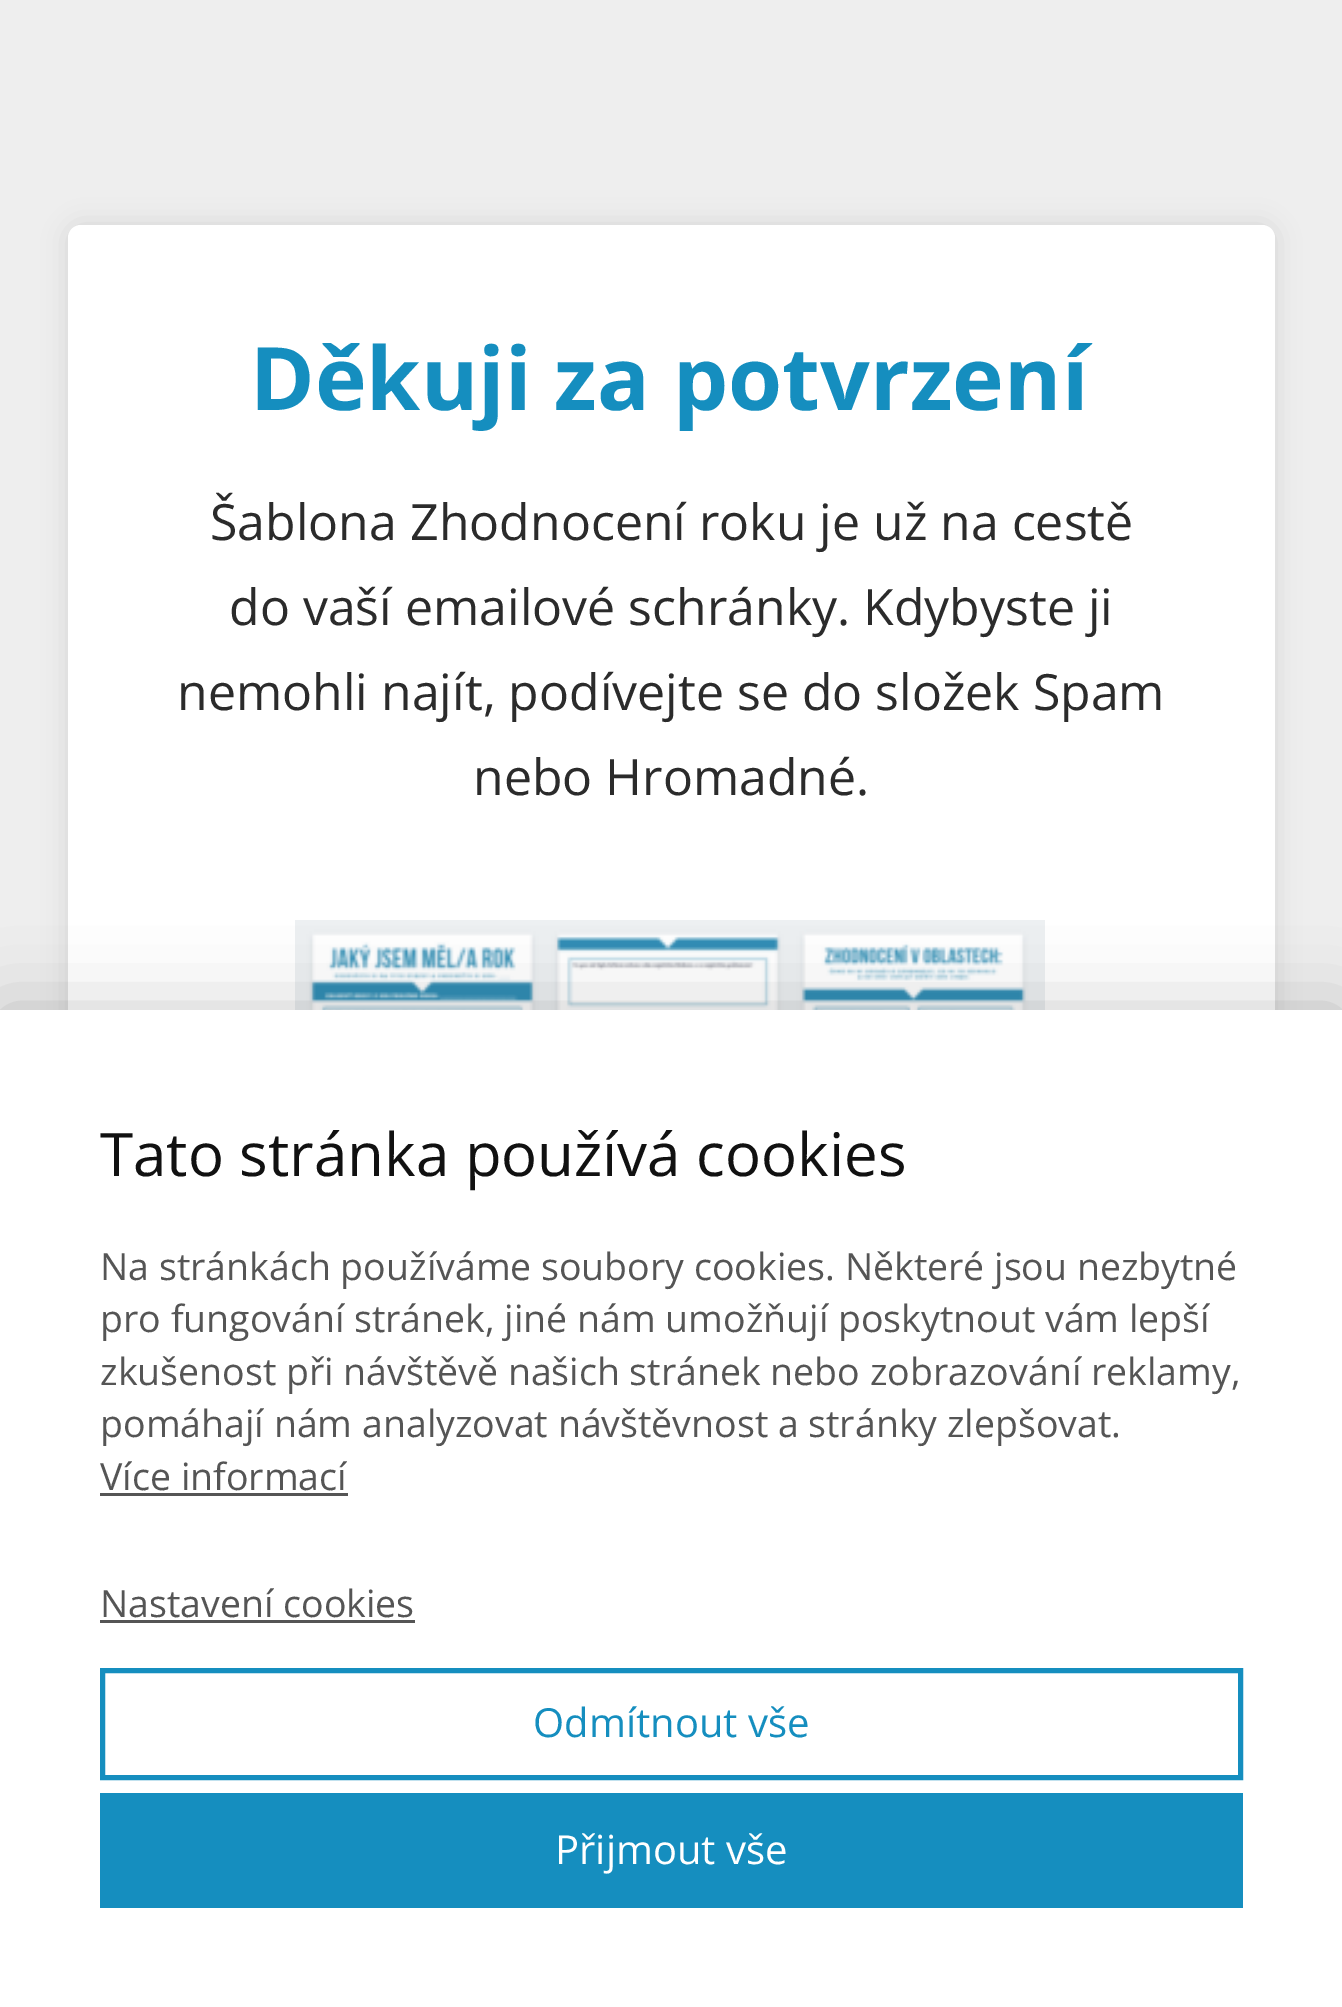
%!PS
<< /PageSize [1342 2007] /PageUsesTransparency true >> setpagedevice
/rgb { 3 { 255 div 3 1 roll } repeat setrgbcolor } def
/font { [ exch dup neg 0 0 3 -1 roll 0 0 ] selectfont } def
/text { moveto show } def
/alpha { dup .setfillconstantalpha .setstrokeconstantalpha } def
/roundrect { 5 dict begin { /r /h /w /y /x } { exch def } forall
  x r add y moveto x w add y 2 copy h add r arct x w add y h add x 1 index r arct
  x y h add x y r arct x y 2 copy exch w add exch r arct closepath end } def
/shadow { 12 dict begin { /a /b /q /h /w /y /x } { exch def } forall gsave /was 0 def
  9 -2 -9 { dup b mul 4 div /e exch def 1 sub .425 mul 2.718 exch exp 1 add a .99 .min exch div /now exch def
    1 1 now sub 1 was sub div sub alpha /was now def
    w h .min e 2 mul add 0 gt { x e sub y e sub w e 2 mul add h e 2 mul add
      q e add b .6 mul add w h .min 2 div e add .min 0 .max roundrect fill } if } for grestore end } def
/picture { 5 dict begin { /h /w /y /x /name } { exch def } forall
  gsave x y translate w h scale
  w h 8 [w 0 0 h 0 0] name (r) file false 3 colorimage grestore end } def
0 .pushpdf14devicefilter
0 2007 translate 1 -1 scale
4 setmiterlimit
238 238 238 rgb
0 0 1342 2007 rectfill
0 0 0 rgb
68 225 1207 1155 13 12.5 0.1 shadow
255 255 255 rgb
68 225 1207 1155 13 roundrect fill
(img_01.rgb) 295 920 750 90 picture
0 0 0 rgb
0 1010 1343 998 0 37.5 0.2 shadow
255 255 255 rgb
0 1010 1342 997 rectfill
85 85 85 rgb
100 1493 248 3 rectfill
100 1620 315 3 rectfill
21 142 191 rgb
5 setlinewidth
102.5 1670.5 1138 107 rectstroke
100 1793 1143 115 rectfill
/OpenSans-Bold 87.5 font
(Děkuji za potvrzení) 250 410 text
/OpenSans-Regular 50 font
43 43 43 rgb
(Šablona Zhodnocení roku je už na cestě) 210 540 text
(do vaší emailové schránky. Kdybyste ji) 229 625 text
(nemohli najít, podívejte se do složek Spam) 177 710 text
(nebo Hromadné.) 473 795 text
/OpenSans-Regular 60 font
17 17 17 rgb
(Tato stránka používá cookies) 100 1176 text
/OpenSans-Regular 37.5 font
85 85 85 rgb
(Na stránkách používáme soubory cookies. Některé jsou nezbytné) 100 1280 text
(pro fungování stránek, jiné nám umožňují poskytnout vám lepší) 100 1332 text
(zkušenost při návštěvě našich stránek nebo zobrazování reklamy,) 100 1385 text
(pomáhají nám analyzovat návštěvnost a stránky zlepšovat.) 100 1437 text
(Více informací) 100 1490 text
(Nastavení cookies) 100 1617 text
/OpenSans-Regular 40 font
21 142 191 rgb
(Odmítnout vše) 533 1737 text
255 255 255 rgb
(Přijmout vše) 555 1864 text
.poppdf14devicefilter showpage
